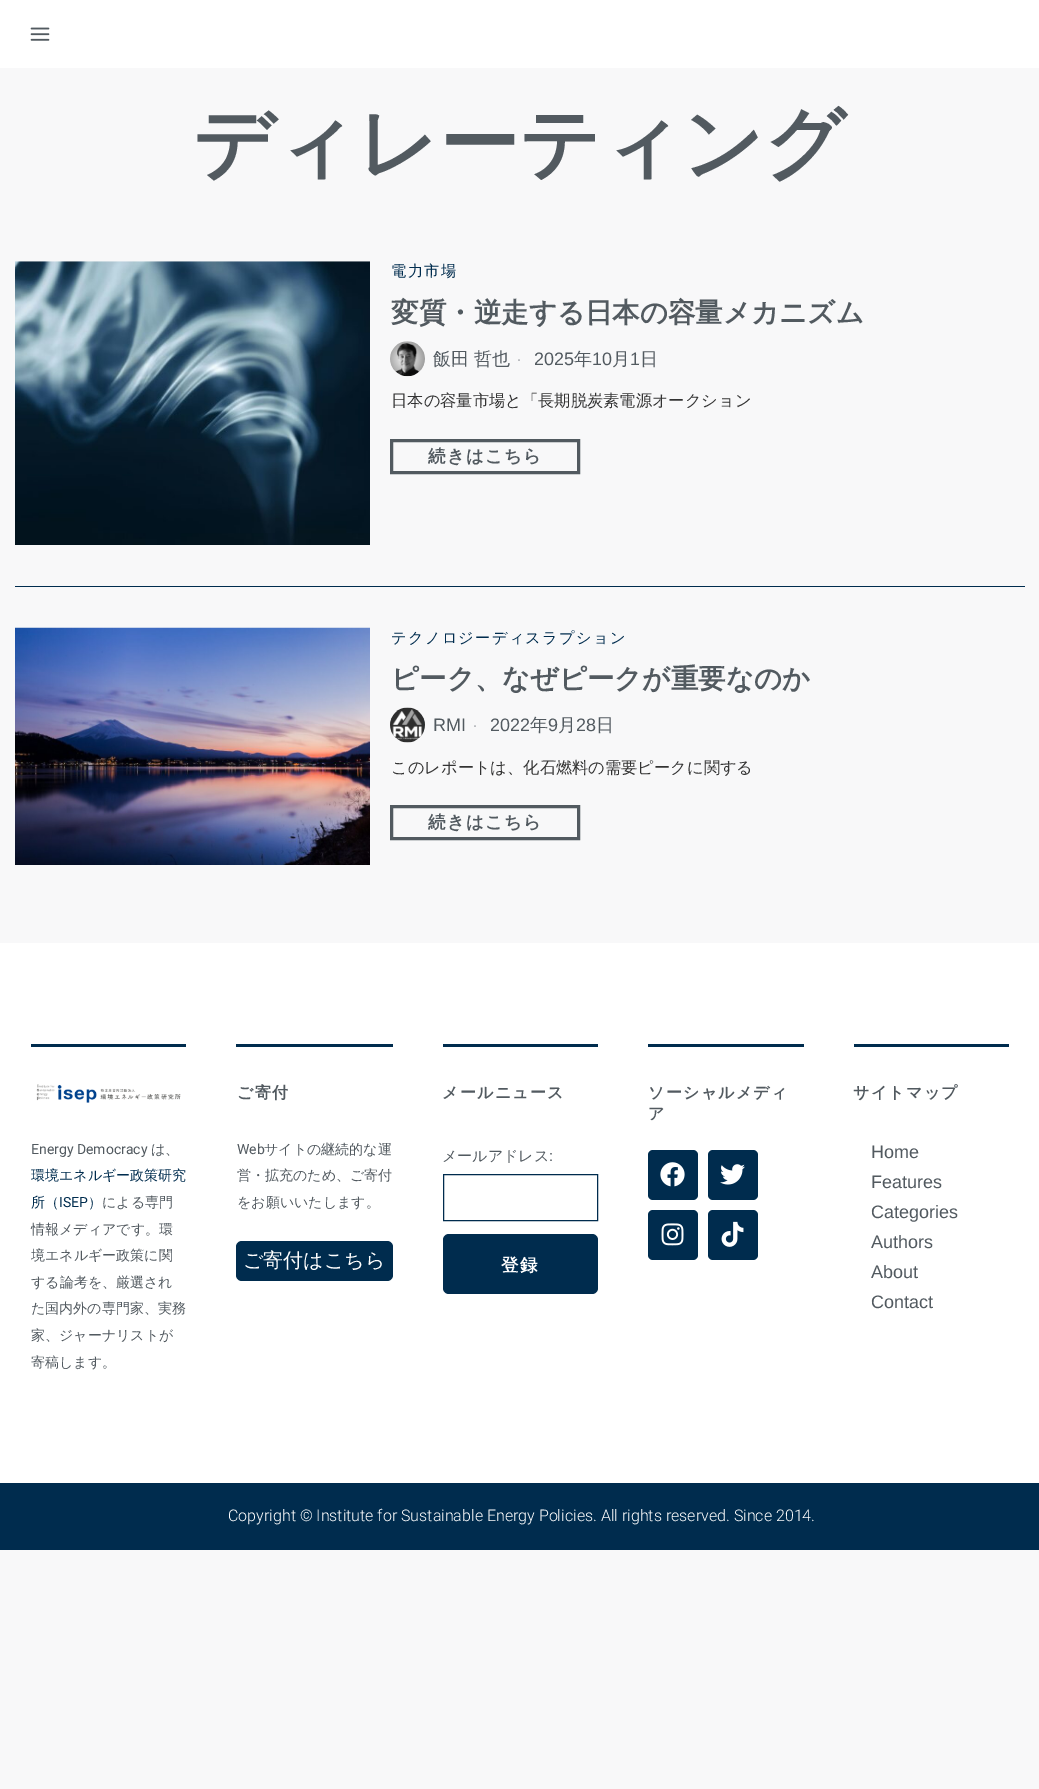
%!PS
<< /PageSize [1039 1789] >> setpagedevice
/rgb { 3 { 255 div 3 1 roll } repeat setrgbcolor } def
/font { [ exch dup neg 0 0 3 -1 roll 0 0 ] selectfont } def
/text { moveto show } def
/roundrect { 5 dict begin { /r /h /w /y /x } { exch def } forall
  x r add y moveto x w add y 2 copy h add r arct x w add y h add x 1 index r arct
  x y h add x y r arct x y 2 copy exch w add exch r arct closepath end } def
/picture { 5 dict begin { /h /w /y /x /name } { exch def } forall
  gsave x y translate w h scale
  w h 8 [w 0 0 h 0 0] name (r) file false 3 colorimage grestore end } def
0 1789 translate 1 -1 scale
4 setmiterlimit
248 248 249 rgb
0 0 1039 1789 rectfill
255 255 255 rgb
0 0 1039 68 rectfill
(img_01.rgb) 30 27 20 14 picture
(img_02.rgb) 15 261 355 284 picture
(img_03.rgb) 390 341 35 36 picture
82 90 96 rgb
3 setlinewidth
391.5 440.5 187 32 rectstroke
0 44 78 rgb
15 586 1010 1 rectfill
(img_04.rgb) 15 627 355 238 picture
(img_05.rgb) 390 707 35 36 picture
82 90 96 rgb
391.5 806.5 187 32 rectstroke
255 255 255 rgb
0 943 1039 540 rectfill
0 44 78 rgb
236 1044 157 3 rectfill
236 1241 157 40 6 roundrect fill
443 1044 155 3 rectfill
1 setlinewidth
443.5 1174.5 154 46 rectstroke
443 1234 155 60 6 roundrect fill
648 1044 156 3 rectfill
648 1150 50 50 5 roundrect fill
(img_06.rgb) 660 1162 25 25 picture
708 1150 50 50 5 roundrect fill
(img_07.rgb) 720 1164 25 21 picture
648 1210 50 50 5 roundrect fill
(img_08.rgb) 661 1223 23 23 picture
708 1210 50 50 5 roundrect fill
(img_09.rgb) 721 1221 23 26 picture
854 1044 155 3 rectfill
31 1044 155 3 rectfill
(img_10.rgb) 36 1084 145 19 picture
0 1483 1039 67 rectfill
/WenQuanYiZenHei-Bold 80 font
82 90 96 rgb
(ディレーティング) 193 171 text
/WenQuanYiZenHei-Medium 15.25 font
0 44 78 rgb
391 276 moveto 1.25 0 (電力市場) ashow
/WenQuanYiZenHei-Bold 27.5 font
82 90 96 rgb
(変質・逆走する日本の容量メカニズム) 391 322 text
/WenQuanYiZenHei-Medium 18 font
(飯田 哲也) 433 365 text
/LiberationSans-Regular 18 font
165 169 173 rgb
(·) 516 365 text
82 90 96 rgb
(2025) 534 365 text
/WenQuanYiZenHei-Medium 18 font
(年) 574 365 text
/LiberationSans-Regular 18 font
(10) 592 365 text
/WenQuanYiZenHei-Medium 18 font
(月) 612 365 text
/LiberationSans-Regular 18 font
(1) 630 365 text
/WenQuanYiZenHei-Medium 18 font
(日) 640 365 text
/WenQuanYiZenHei-Medium 16.25 font
51 51 51 rgb
(日本の容量市場と「長期脱炭素電源オークション) 391 406 text
/WenQuanYiZenHei-Bold 17.5 font
82 90 96 rgb
428 462 moveto 1.25 0 (続きはこちら) ashow
/WenQuanYiZenHei-Medium 15.25 font
0 44 78 rgb
391 643 moveto 1.25 0 (テクノロジーディスラプション) ashow
/WenQuanYiZenHei-Bold 27.5 font
82 90 96 rgb
(ピーク、なぜピークが重要なのか) 391 688 text
/LiberationSans-Regular 18 font
(RMI) 433 731 text
165 169 173 rgb
(·) 472 731 text
82 90 96 rgb
(2022) 490 731 text
/WenQuanYiZenHei-Medium 18 font
(年) 530 731 text
/LiberationSans-Regular 18 font
(9) 548 731 text
/WenQuanYiZenHei-Medium 18 font
(月) 558 731 text
/LiberationSans-Regular 18 font
(28) 576 731 text
/WenQuanYiZenHei-Medium 18 font
(日) 596 731 text
/WenQuanYiZenHei-Medium 16.25 font
51 51 51 rgb
(このレポートは、化石燃料の需要ピークに関する) 391 773 text
/WenQuanYiZenHei-Bold 17.5 font
82 90 96 rgb
428 828 moveto 1.25 0 (続きはこちら) ashow
/WenQuanYiZenHei-Bold 16 font
237 1098 moveto 1.25 0 (ご寄付) ashow
/Roboto-Regular 14 font
(Web) 237 1154 text
/WenQuanYiZenHei-Medium 14 font
(サイトの継続的な運) 264 1154 text
(営・拡充のため、ご寄付) 237 1180 text
(をお願いいたします。) 237 1207 text
/WenQuanYiZenHei-Medium 20 font
255 255 255 rgb
(ご寄付はこちら) 243 1267 text
/WenQuanYiZenHei-Bold 16 font
82 90 96 rgb
442 1098 moveto 1.25 0 (メールニュース) ashow
/WenQuanYiZenHei-Medium 15 font
(メールアドレス) 442 1161 text
/LiberationSans-Regular 15 font
(:) 549 1161 text
/WenQuanYiZenHei-Bold 17.5 font
255 255 255 rgb
501 1271 moveto 1.25 0 (登録) ashow
/WenQuanYiZenHei-Bold 16 font
82 90 96 rgb
648 1098 moveto 1.25 0 (ソーシャルメディ) ashow
648 1119 moveto 1.25 0 (ア) ashow
853 1098 moveto 1.25 0 (サイトマップ) ashow
/LiberationSans-Regular 18 font
(Home) 871 1158 text
(Features) 871 1188 text
(Categories) 871 1218 text
(Authors) 871 1248 text
(About) 871 1278 text
(Contact) 871 1308 text
/Roboto-Regular 14 font
(Energy Democracy) 31 1154 text
/WenQuanYiZenHei-Medium 14 font
(は、) 151 1154 text
0 44 78 rgb
(環境エネルギー政策研究) 31 1180 text
(所（) 31 1207 text
/Roboto-Regular 14 font
(ISEP) 59 1207 text
/WenQuanYiZenHei-Medium 14 font
(）) 88 1207 text
82 90 96 rgb
(による専門) 102 1207 text
(情報メディアです。環) 31 1234 text
(境エネルギー政策に関) 31 1260 text
(する論考を、厳選され) 31 1287 text
(た国内外の専門家、実務) 31 1313 text
(家、ジャーナリストが) 31 1340 text
(寄稿します。) 31 1367 text
/Roboto-Light 16 font
255 255 255 rgb
(Copyright © Institute for Sustainable Energy Policies. All rights reserved. Since 2014.) 228 1521 text
showpage
